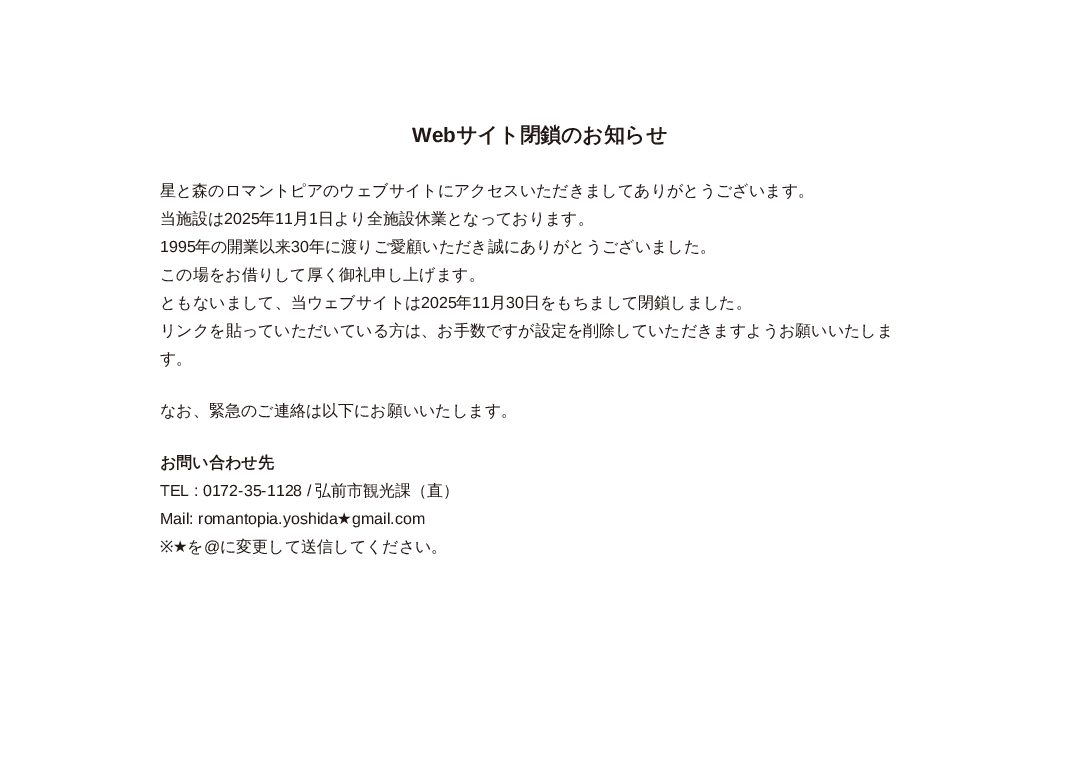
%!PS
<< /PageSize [1079 780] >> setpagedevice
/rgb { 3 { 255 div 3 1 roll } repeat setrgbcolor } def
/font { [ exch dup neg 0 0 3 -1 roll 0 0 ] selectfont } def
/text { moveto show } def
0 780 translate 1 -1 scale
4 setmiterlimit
255 255 255 rgb
0 0 1079 780 rectfill
/LiberationSans-Bold 20.75 font
33 23 21 rgb
(Web) 412 142 text
/WenQuanYiZenHei-Bold 20.75 font
(サイト閉鎖のお知らせ) 456 142 text
/WenQuanYiZenHei-Medium 16 font
(星と森のロマントピアのウェブサイトにアクセスいただきましてありがとうございます。) 160 196 text
(当施設は) 160 224 text
/LiberationSans-Regular 16 font
(2025) 224 224 text
/WenQuanYiZenHei-Medium 16 font
(年) 259 224 text
/LiberationSans-Regular 16 font
(11) 275 224 text
/WenQuanYiZenHei-Medium 16 font
(月) 293 224 text
/LiberationSans-Regular 16 font
(1) 309 224 text
/WenQuanYiZenHei-Medium 16 font
(日より全施設休業となっております。) 318 224 text
/LiberationSans-Regular 16 font
(1995) 160 252 text
/WenQuanYiZenHei-Medium 16 font
(年の開業以来) 195 252 text
/LiberationSans-Regular 16 font
(30) 291 252 text
/WenQuanYiZenHei-Medium 16 font
(年に渡りご愛顧いただき誠にありがとうございました。) 309 252 text
(この場をお借りして厚く御礼申し上げます。) 160 280 text
(ともないまして、当ウェブサイトは) 160 308 text
/LiberationSans-Regular 16 font
(2025) 421 308 text
/WenQuanYiZenHei-Medium 16 font
(年) 456 308 text
/LiberationSans-Regular 16 font
(11) 472 308 text
/WenQuanYiZenHei-Medium 16 font
(月) 490 308 text
/LiberationSans-Regular 16 font
(30) 506 308 text
/WenQuanYiZenHei-Medium 16 font
(日をもちまして閉鎖しました。) 524 308 text
(リンクを貼っていただいている方は、お手数ですが設定を削除していただきますようお願いいたしま) 160 336 text
(す。) 160 364 text
(なお、緊急のご連絡は以下にお願いいたします。) 160 416 text
/WenQuanYiZenHei-Bold 16 font
(お問い合わせ先) 160 468 text
/LiberationSans-Regular 16 font
(TEL : 0172-35-1128 /) 160 496 text
/WenQuanYiZenHei-Medium 16 font
(弘前市観光課（直）) 315 496 text
/LiberationSans-Regular 16 font
(Mail: romantopia.yoshida) 160 524 text
/DejaVuSans-Regular 16 font
(★) 337 524 text
/LiberationSans-Regular 16 font
(gmail.com) 352 524 text
/NotoSans-Regular 16 font
(※) 160 552 text
/DejaVuSans-Regular 16 font
(★) 173 552 text
/WenQuanYiZenHei-Medium 16 font
(を) 187 552 text
/LiberationSans-Regular 16 font
(@) 204 552 text
/WenQuanYiZenHei-Medium 16 font
(に変更して送信してください。) 220 552 text
showpage
